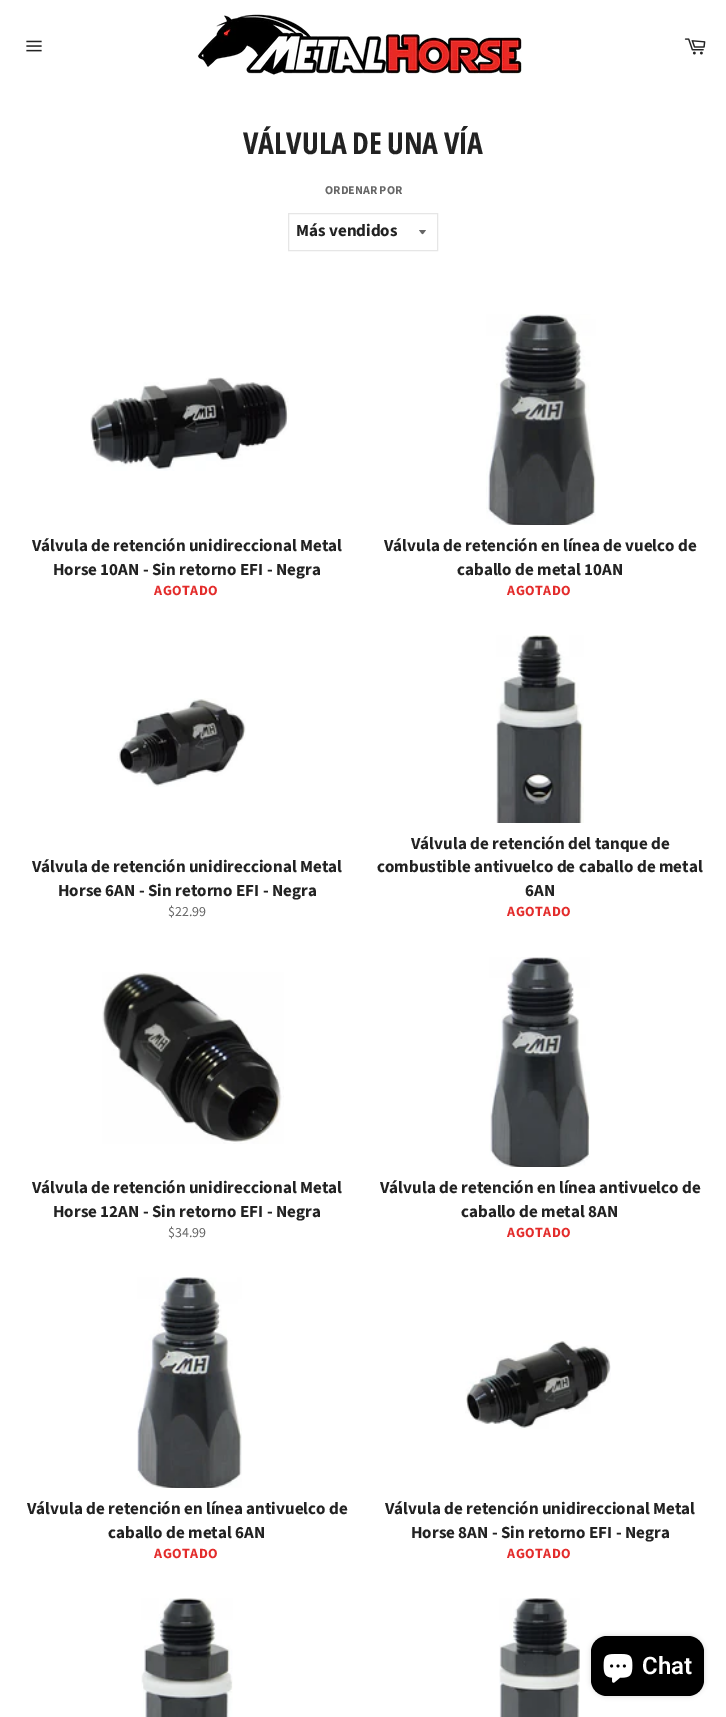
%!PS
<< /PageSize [726 1717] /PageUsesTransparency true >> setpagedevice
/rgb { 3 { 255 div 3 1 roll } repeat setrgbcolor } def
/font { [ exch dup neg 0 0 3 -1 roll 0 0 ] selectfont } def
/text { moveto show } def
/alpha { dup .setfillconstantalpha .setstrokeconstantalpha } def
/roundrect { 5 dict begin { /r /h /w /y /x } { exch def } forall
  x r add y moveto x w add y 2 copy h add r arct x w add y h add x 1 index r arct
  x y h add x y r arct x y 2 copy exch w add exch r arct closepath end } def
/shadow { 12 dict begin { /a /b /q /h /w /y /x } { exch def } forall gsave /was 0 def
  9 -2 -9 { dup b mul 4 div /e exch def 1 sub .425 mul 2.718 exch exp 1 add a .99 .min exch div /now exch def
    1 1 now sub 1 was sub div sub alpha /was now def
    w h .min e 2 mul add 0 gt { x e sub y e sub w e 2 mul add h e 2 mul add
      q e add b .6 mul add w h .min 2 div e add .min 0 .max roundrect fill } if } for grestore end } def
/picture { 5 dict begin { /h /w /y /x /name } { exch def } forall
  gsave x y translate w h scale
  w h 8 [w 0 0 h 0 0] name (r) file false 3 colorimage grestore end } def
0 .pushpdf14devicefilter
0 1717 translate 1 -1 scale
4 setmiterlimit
255 255 255 rgb
0 0 726 1717 rectfill
(img_01.rgb) 26 40 16 12 picture
(img_02.rgb) 197 14 325 61 picture
(img_03.rgb) 684 38 22 17 picture
102 102 102 rgb
419 230 moveto 4.5 5.5 2.5 5.5 7 0 rcurveto closepath fill
230 230 230 rgb
288.5 213.5 149 37 rectstroke
(img_04.rgb) 90 377 199 94 picture
(img_05.rgb) 486 314 110 211 picture
(img_06.rgb) 117 698 129 89 picture
(img_07.rgb) 496 635 88 188 picture
(img_08.rgb) 102 972 182 172 picture
(img_09.rgb) 489 957 101 210 picture
(img_10.rgb) 137 1277 105 211 picture
(img_11.rgb) 465 1340 146 89 picture
(img_12.rgb) 141 1598 92 119 picture
(img_13.rgb) 499 1598 81 119 picture
0 0 0 rgb
591 1636 113 60 16 2.5 0.15 shadow
591 1636 113 60 16 roundrect fill
(img_14.rgb) 603 1654 30 29 picture
/OpenSansCondensed-Bold 30 font
34 34 34 rgb
(VÁLVULA DE UNA VÍA) 243 154 text
/SourceSansPro-Bold 12 font
102 102 102 rgb
(ORDENAR POR) 325 194 text
/SourceSansPro-Bold 17 font
34 34 34 rgb
(Más vendidos) 296 236 text
(Válvula de retención unidireccional Metal) 32 551 text
(Horse 10AN - Sin retorno EFI - Negra) 53 575 text
/SourceSansPro-Bold 14 font
227 44 43 rgb
154 595 moveto 0.5 0 (AGOTADO) ashow
/SourceSansPro-Bold 17 font
34 34 34 rgb
(Válvula de retención en línea de vuelco de) 384 551 text
(caballo de metal 10AN) 457 575 text
/SourceSansPro-Bold 14 font
227 44 43 rgb
507 595 moveto 0.5 0 (AGOTADO) ashow
/SourceSansPro-Bold 17 font
34 34 34 rgb
(Válvula de retención unidireccional Metal) 32 872 text
(Horse 6AN - Sin retorno EFI - Negra) 58 896 text
/SourceSansPro-Regular 14 font
102 102 102 rgb
($22.99) 168 916 text
/SourceSansPro-Bold 17 font
34 34 34 rgb
(Válvula de retención del tanque de) 411 849 text
(combustible antivuelco de caballo de metal) 377 872 text
(6AN) 525 896 text
/SourceSansPro-Bold 14 font
227 44 43 rgb
507 916 moveto 0.5 0 (AGOTADO) ashow
/SourceSansPro-Bold 17 font
34 34 34 rgb
(Válvula de retención unidireccional Metal) 32 1193 text
(Horse 12AN - Sin retorno EFI - Negra) 53 1217 text
/SourceSansPro-Regular 14 font
102 102 102 rgb
($34.99) 168 1237 text
/SourceSansPro-Bold 17 font
34 34 34 rgb
(Válvula de retención en línea antivuelco de) 380 1193 text
(caballo de metal 8AN) 461 1217 text
/SourceSansPro-Bold 14 font
227 44 43 rgb
507 1237 moveto 0.5 0 (AGOTADO) ashow
/SourceSansPro-Bold 17 font
34 34 34 rgb
(Válvula de retención en línea antivuelco de) 27 1514 text
(caballo de metal 6AN) 108 1538 text
/SourceSansPro-Bold 14 font
227 44 43 rgb
154 1558 moveto 0.5 0 (AGOTADO) ashow
/SourceSansPro-Bold 17 font
34 34 34 rgb
(Válvula de retención unidireccional Metal) 385 1514 text
(Horse 8AN - Sin retorno EFI - Negra) 411 1538 text
/SourceSansPro-Bold 14 font
227 44 43 rgb
507 1558 moveto 0.5 0 (AGOTADO) ashow
/Roboto-SemiBold 24 font
255 255 255 rgb
(Chat) 642 1674 text
.poppdf14devicefilter showpage
